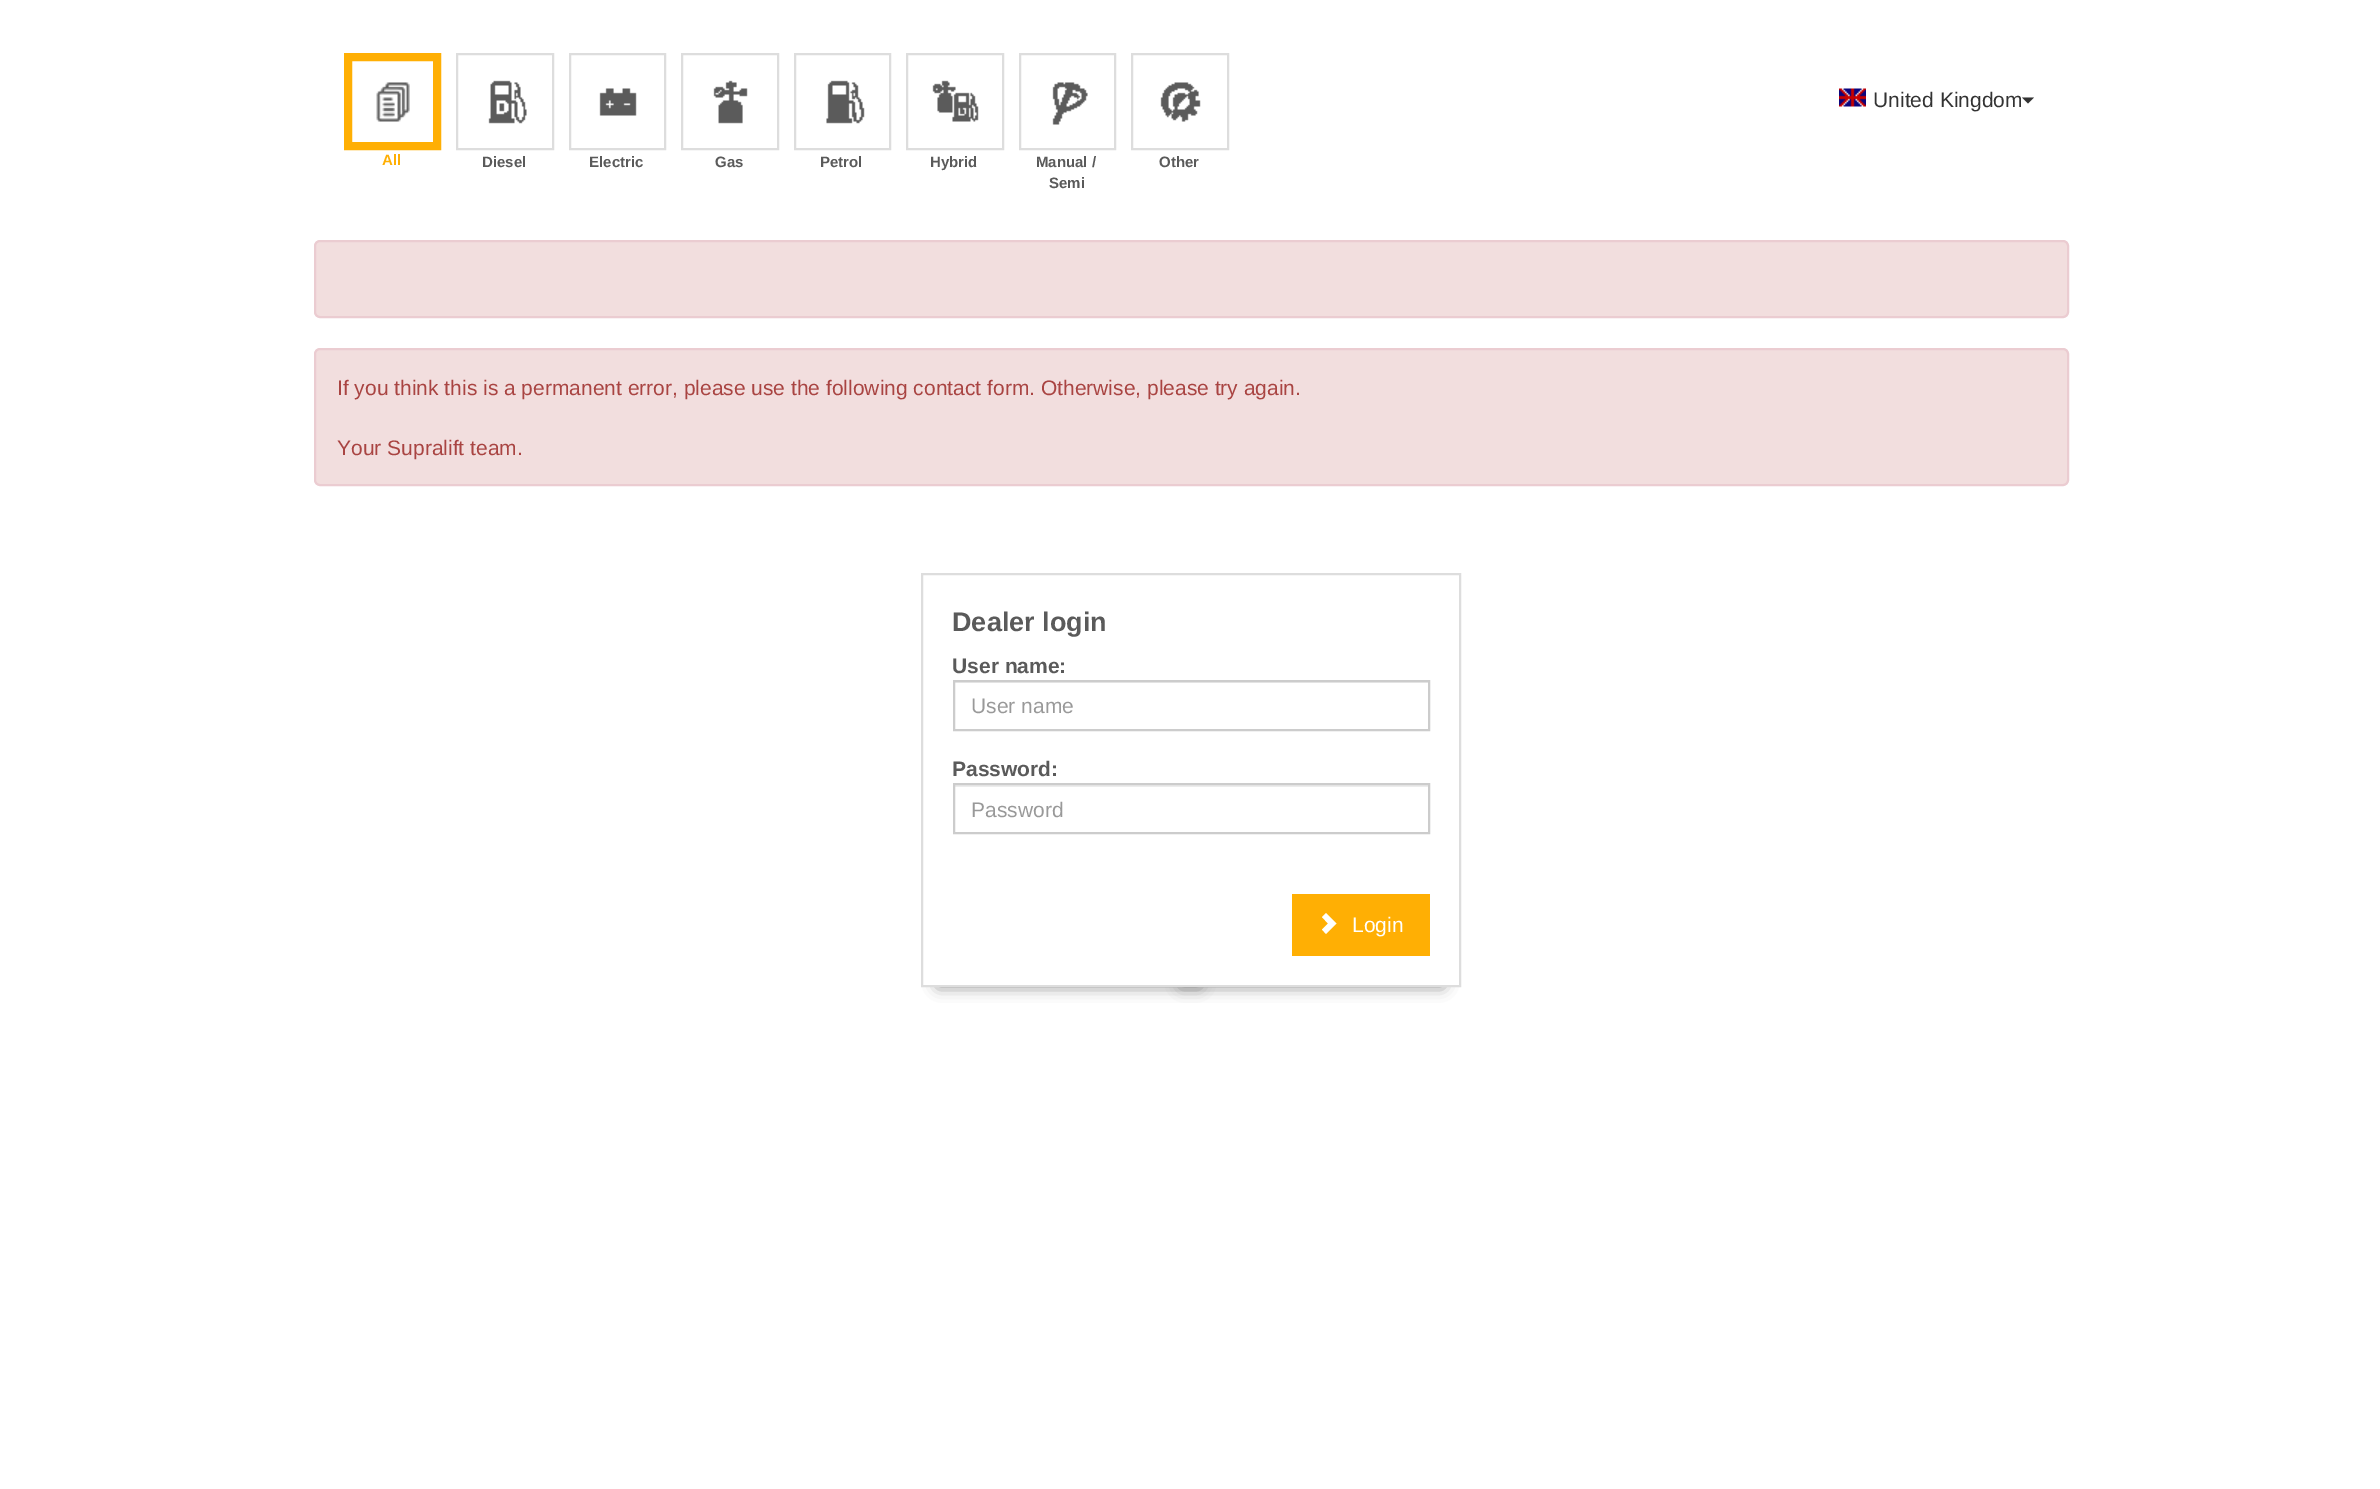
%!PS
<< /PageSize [2380 1489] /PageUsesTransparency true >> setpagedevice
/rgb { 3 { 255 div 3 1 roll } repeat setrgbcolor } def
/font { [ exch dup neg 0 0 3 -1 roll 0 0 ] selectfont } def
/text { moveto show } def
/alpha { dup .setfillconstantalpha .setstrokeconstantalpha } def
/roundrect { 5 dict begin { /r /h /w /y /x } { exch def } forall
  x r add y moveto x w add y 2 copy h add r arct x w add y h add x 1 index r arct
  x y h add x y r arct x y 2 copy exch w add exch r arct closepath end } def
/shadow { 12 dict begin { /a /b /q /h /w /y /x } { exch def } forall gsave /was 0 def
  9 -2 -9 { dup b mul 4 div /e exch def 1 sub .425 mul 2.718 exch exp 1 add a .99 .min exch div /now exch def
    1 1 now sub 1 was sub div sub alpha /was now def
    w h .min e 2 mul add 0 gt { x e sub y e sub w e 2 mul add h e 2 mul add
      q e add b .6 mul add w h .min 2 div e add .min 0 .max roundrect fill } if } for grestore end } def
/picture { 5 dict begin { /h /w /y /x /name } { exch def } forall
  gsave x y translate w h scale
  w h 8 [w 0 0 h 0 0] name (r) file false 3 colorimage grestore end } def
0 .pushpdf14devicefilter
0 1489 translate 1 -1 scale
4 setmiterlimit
255 255 255 rgb
0 0 2380 1489 rectfill
(img_01.rgb) 1839 88 27 19 picture
51 51 51 rgb
2022 97.5 moveto 12 0 rlineto -6 6 rlineto closepath fill
255 175 4 rgb
8 setlinewidth
348 57 89 89 rectstroke
(img_02.rgb) 376 82 34 40 picture
221 221 221 rgb
2 setlinewidth
457 54 96 95 rectstroke
(img_03.rgb) 488 80 39 44 picture
570 54 95 95 rectstroke
(img_04.rgb) 599 88 38 28 picture
682 54 96 95 rectstroke
(img_05.rgb) 713 80 35 44 picture
795 54 95 95 rectstroke
(img_06.rgb) 826 80 39 44 picture
907 54 96 95 rectstroke
(img_07.rgb) 932 80 47 42 picture
1020 54 95 95 rectstroke
(img_08.rgb) 1052 82 36 43 picture
1132 54 96 95 rectstroke
(img_09.rgb) 1160 82 41 40 picture
242 222 222 rgb
315 241 1753 76 5 roundrect gsave fill grestore
235 204 209 rgb
stroke
242 222 222 rgb
315 349 1753 136 5 roundrect gsave fill grestore
235 204 209 rgb
stroke
119 119 119 rgb
938 885 262 101 0 7.5 1 shadow
1181 885 262 101 0 7.5 1 shadow
255 255 255 rgb
923 868 536 117 rectfill
221 221 221 rgb
922 574 538 412 rectstroke
236 236 236 rgb
954 682 474 1 rectfill
204 204 204 rgb
954 681 475 49 rectstroke
236 236 236 rgb
954 785 474 2 rectfill
204 204 204 rgb
954 784 475 49 rectstroke
255 175 4 rgb
1292 894 138 62 rectfill
255 255 255 rgb
1322 929.5 moveto 6 -6 rlineto -6 -6.5 rlineto 4 -4 rlineto 10.5 10.5 rlineto -10.5 10.5 rlineto closepath fill
/LiberationSans-Regular 21 font
51 51 51 rgb
(United Kingdom) 1873 107 text
/LiberationSans-Bold 15 font
255 175 4 rgb
(All) 382 165 text
90 90 90 rgb
(Diesel) 482 167 text
(Electric) 589 167 text
(Gas) 715 167 text
(Petrol) 820 167 text
(Hybrid) 930 167 text
(Manual /) 1036 167 text
(Semi) 1049 188 text
(Other) 1159 167 text
/LiberationSans-Regular 21 font
169 68 66 rgb
(If you think this is a permanent error, please use the following contact form. Otherwise, please try again.) 337 395 text
(Your Supralift team.) 337 455 text
/LiberationSans-Bold 27 font
90 90 90 rgb
(Dealer login) 952 631 text
/LiberationSans-Bold 21 font
(User name:) 952 673 text
/LiberationSans-Regular 21 font
153 153 153 rgb
(User name) 971 713 text
/LiberationSans-Bold 21 font
90 90 90 rgb
(Password:) 952 776 text
/LiberationSans-Regular 21 font
153 153 153 rgb
(Password) 971 817 text
255 255 255 rgb
(Login) 1352 932 text
.poppdf14devicefilter showpage
